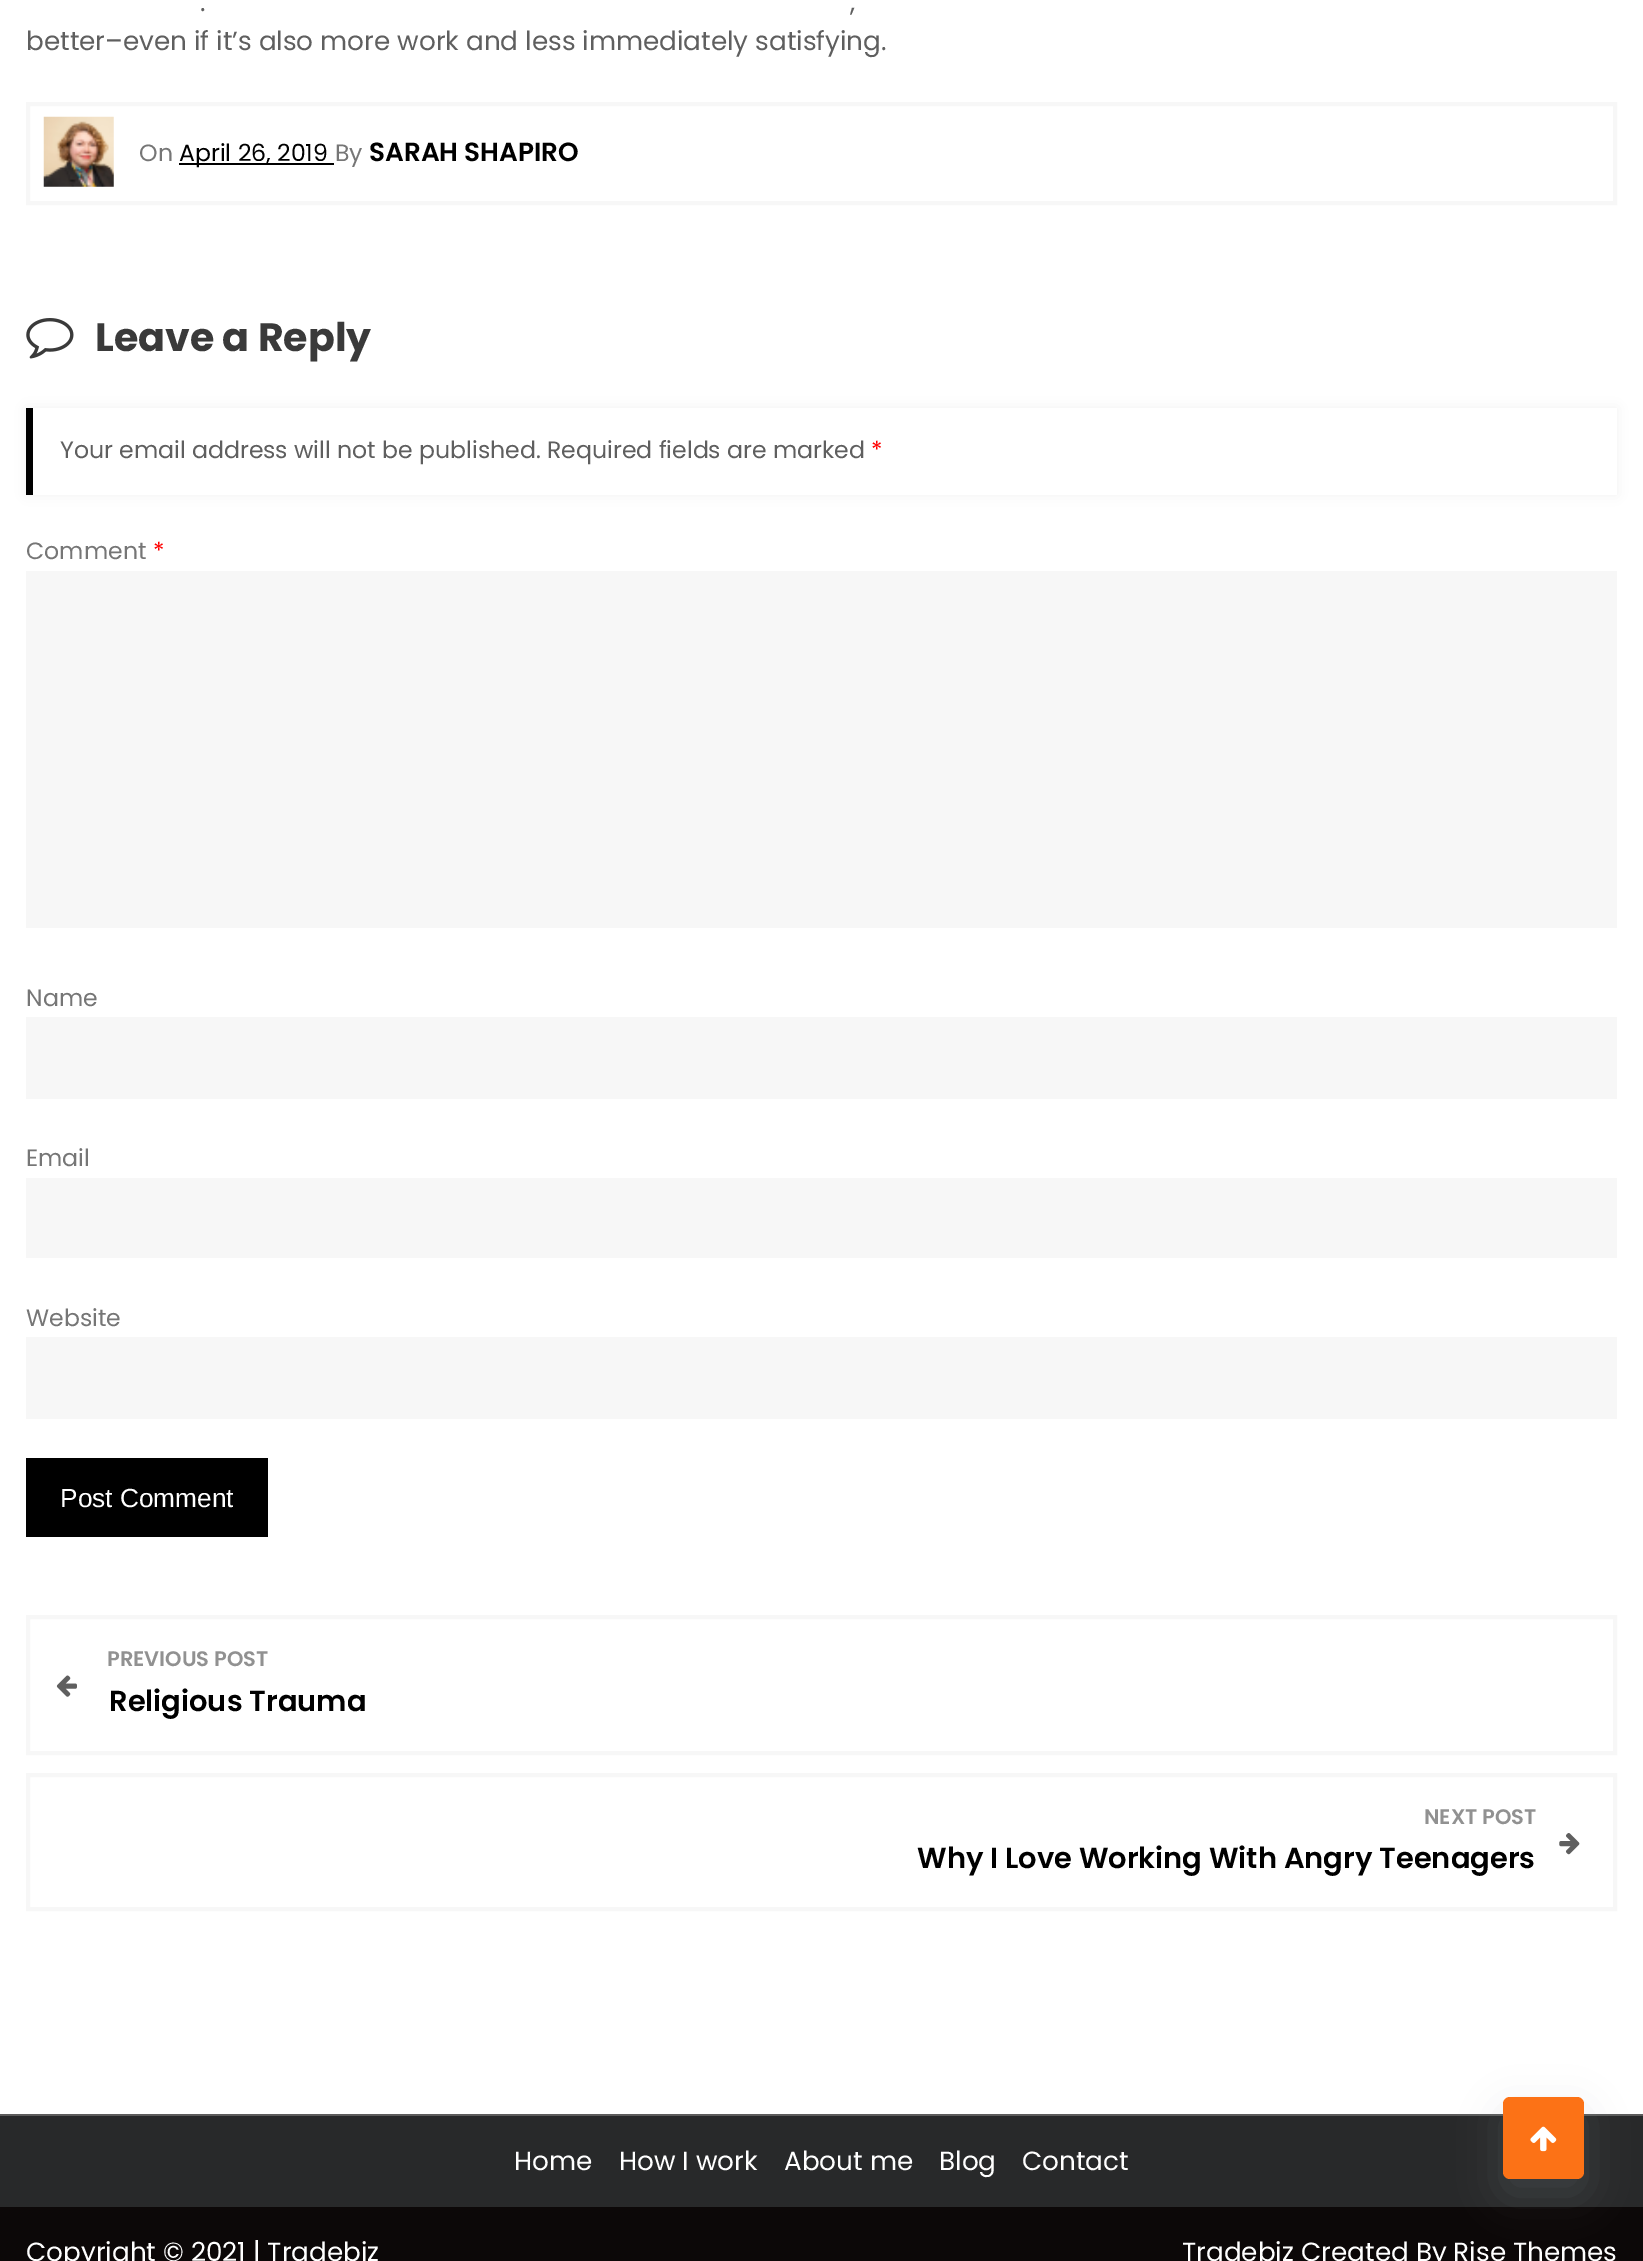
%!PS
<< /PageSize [1643 2261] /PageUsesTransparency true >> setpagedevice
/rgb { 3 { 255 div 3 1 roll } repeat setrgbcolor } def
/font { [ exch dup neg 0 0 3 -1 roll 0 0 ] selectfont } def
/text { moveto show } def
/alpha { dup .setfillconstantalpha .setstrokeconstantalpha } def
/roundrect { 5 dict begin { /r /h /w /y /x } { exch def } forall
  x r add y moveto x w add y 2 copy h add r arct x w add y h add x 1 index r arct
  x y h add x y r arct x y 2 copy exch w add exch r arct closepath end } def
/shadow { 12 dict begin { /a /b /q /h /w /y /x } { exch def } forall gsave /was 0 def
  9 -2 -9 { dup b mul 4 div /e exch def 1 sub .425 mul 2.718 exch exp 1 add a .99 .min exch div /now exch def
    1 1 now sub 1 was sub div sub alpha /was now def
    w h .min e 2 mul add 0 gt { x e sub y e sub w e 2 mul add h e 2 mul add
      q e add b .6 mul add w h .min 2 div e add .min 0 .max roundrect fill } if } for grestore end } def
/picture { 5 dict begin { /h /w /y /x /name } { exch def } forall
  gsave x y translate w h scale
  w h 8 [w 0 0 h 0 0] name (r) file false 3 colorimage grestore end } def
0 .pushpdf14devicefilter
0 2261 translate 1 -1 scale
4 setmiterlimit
255 255 255 rgb
0 0 1643 2261 rectfill
247 247 247 rgb
4 setlinewidth
28 104 1587 99 rectstroke
(img_01.rgb) 43 116 71 71 picture
0 0 0 rgb
179 163 155 2 rectfill
(img_02.rgb) 26 318 48 41 picture
26 408 1591 87 0 6.5 0.06 shadow
255 255 255 rgb
33 408 1584 87 rectfill
0 0 0 rgb
26 408 7 87 rectfill
247 247 247 rgb
26 571 1591 357 rectfill
26 1017 1591 82 rectfill
26 1178 1591 80 rectfill
26 1337 1591 82 rectfill
0 0 0 rgb
26 1458 242 79 rectfill
247 247 247 rgb
28 1617 1587 136 rectstroke
(img_03.rgb) 56 1675 21 22 picture
28 1775 1587 134 rectstroke
(img_04.rgb) 1559 1833 21 22 picture
40 41 42 rgb
0 2116 1643 91 rectfill
92 91 91 rgb
0 2114 1643 2 rectfill
12 8 8 rgb
0 2207 1643 54 rectfill
149 157 165 rgb
1503 2111 81 82 7 21 0.2 shadow
252 114 22 rgb
1503 2097 81 82 7 roundrect fill
(img_05.rgb) 1530 2126 27 26 picture
/Poppins-Regular 26.25 font
95 95 95 rgb
(.) 200 11 text
(,) 850 11 text
(better–even if it’s also more work and less immediately satisfying.) 26 50 text
/Poppins-Regular 23.6 font
118 118 118 rgb
(On) 139 161 text
0 0 0 rgb
(April 26, 2019) 179 161 text
118 118 118 rgb
(By) 335 161 text
/Poppins-SemiBold 26.25 font
0 0 0 rgb
(SARAH SHAPIRO) 369 161 text
/Poppins-Bold 39.5 font
58 58 58 rgb
(Leave a Reply) 95 351 text
/Poppins-Regular 23.6 font
95 95 95 rgb
(Your email address will not be published. Required fields are marked) 60 458 text
255 0 0 rgb
(*) 871 458 text
118 118 118 rgb
(Comment) 26 559 text
255 0 0 rgb
(*) 153 559 text
118 118 118 rgb
(Name) 26 1006 text
(Email) 26 1166 text
(Website) 26 1326 text
/LiberationSans-Regular 26.25 font
255 255 255 rgb
(Post Comment) 60 1507 text
/Poppins-SemiBold 21 font
145 145 145 rgb
(PREVIOUS POST) 107 1666 text
/Poppins-SemiBold 28.9 font
0 0 0 rgb
(Religious Trauma) 109 1711 text
/Poppins-SemiBold 21 font
145 145 145 rgb
(NEXT POST) 1424 1824 text
/Poppins-SemiBold 28.9 font
0 0 0 rgb
(Why I Love Working With Angry Teenagers) 917 1868 text
/Poppins-Regular 26.25 font
255 255 255 rgb
(Home) 514 2170 text
(How I work) 619 2170 text
(About me) 784 2170 text
(Blog) 939 2170 text
(Contact) 1022 2170 text
(Copyright © 2021 | Tradebiz) 26 2261 text
(Tradebiz Created By Rise Themes) 1182 2261 text
.poppdf14devicefilter showpage
